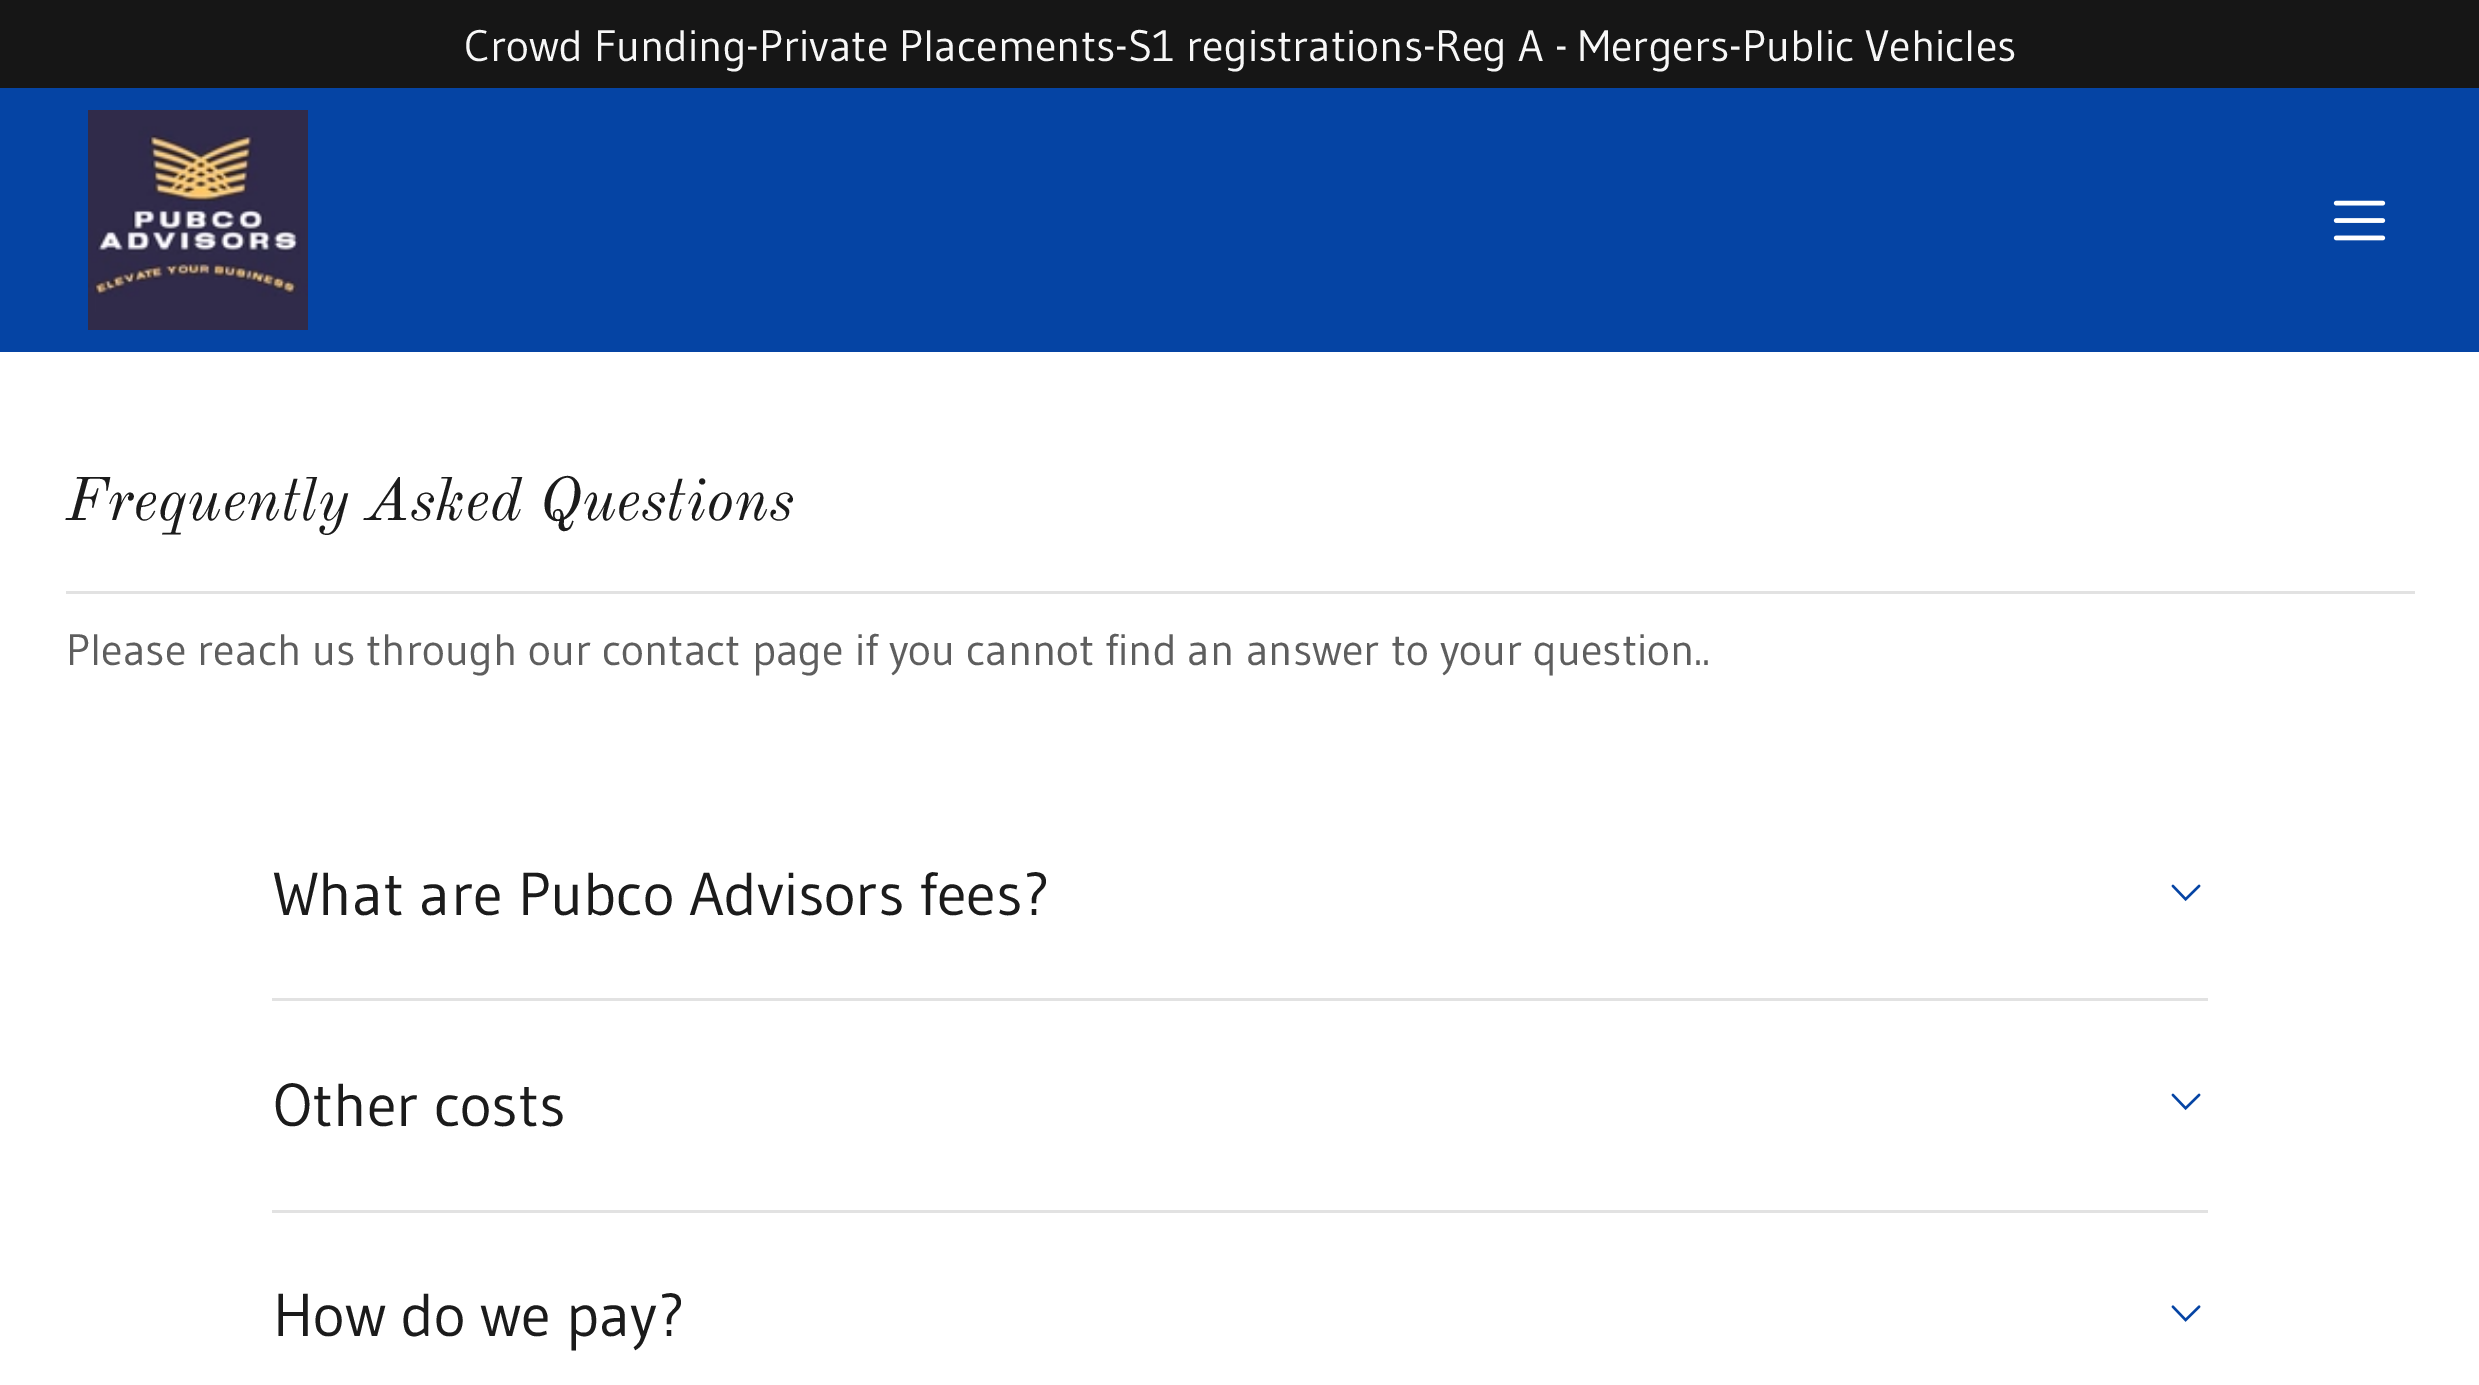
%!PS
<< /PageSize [2479 1385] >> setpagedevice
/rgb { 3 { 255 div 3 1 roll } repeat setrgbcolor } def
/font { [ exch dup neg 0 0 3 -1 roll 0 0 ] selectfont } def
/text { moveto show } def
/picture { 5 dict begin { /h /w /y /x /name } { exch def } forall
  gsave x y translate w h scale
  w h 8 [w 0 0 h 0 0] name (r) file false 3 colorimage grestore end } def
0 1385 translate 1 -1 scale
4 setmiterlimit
255 255 255 rgb
0 0 2479 1385 rectfill
5 68 164 rgb
0 88 2479 264 rectfill
22 22 22 rgb
0 0 2479 88 rectfill
(img_01.rgb) 88 110 220 220 picture
(img_02.rgb) 2333 200 53 41 picture
226 226 226 rgb
66 591 2349 3 rectfill
(img_03.rgb) 2171 884 30 18 picture
272 998 1936 3 rectfill
(img_03.rgb) 2171 1093 30 18 picture
272 1210 1936 3 rectfill
(img_04.rgb) 2171 1305 30 17 picture
/Gudea-Regular 44 font
247 247 247 rgb
(Crowd Funding-Private Placements-S1 registrations-Reg A - Mergers-Public Vehicles) 464 61 text
/OldStandardTT-Italic 60.5 font
27 27 27 rgb
(Frequently Asked Questions) 66 520 text
/Gudea-Regular 44 font
94 94 94 rgb
(Please reach us through our contact page if you cannot find an answer to your question..) 66 665 text
/Gudea-Regular 60.5 font
27 27 27 rgb
(What are Pubco Advisors fees?) 273 915 text
(Other costs) 273 1126 text
(How do we pay?) 273 1336 text
showpage
